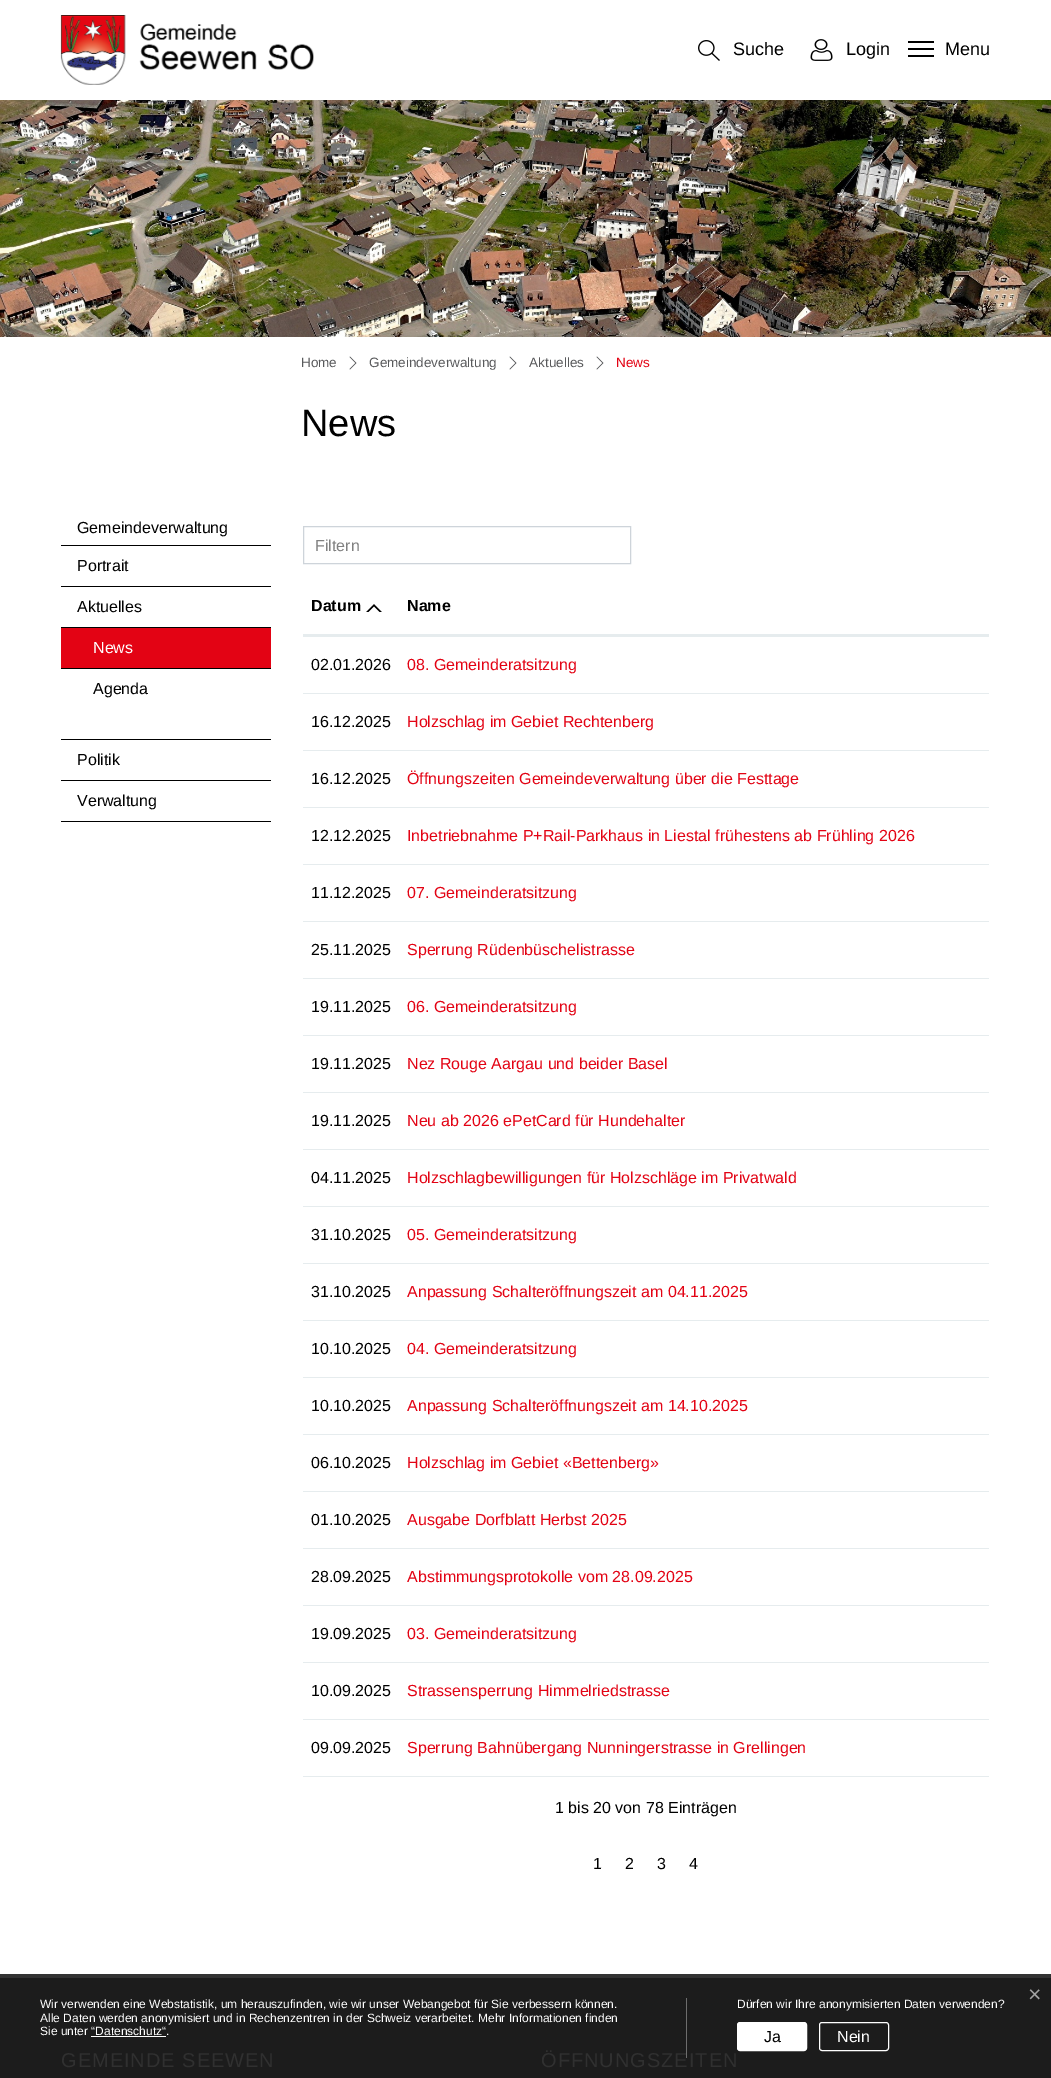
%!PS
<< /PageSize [1051 2078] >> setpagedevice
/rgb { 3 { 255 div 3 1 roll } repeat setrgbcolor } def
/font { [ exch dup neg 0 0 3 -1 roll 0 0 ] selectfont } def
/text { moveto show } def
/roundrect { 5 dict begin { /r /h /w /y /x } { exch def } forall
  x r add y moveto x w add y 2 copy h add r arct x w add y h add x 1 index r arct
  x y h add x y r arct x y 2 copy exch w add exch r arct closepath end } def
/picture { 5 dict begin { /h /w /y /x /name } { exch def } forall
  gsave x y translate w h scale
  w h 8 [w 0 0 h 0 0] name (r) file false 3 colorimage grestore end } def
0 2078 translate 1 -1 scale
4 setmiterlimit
255 255 255 rgb
0 0 1051 2078 rectfill
(img_01.rgb) 60 15 254 70 picture
(img_02.rgb) 698 40 22 21 picture
(img_03.rgb) 810 39 23 22 picture
0 0 0 rgb
908 41 26 2 rectfill
908 48 26 2 rectfill
908 55 26 2 rectfill
(img_04.rgb) 0 100 1051 237 picture
(img_05.rgb) 349 356 8 14 picture
(img_05.rgb) 509 356 8 14 picture
(img_05.rgb) 596 356 8 14 picture
61 545 210 1 rectfill
61 586 210 1 rectfill
61 739 210 1 rectfill
61 627 210 1 rectfill
61 668 210 1 rectfill
227 3 20 rgb
61 628 210 40 rectfill
0 0 0 rgb
61 780 210 1 rectfill
61 821 210 1 rectfill
206 212 218 rgb
303.5 526.5 327 37 rectstroke
230 236 238 rgb
303 1776 686 1 rectfill
303 634 686 2 rectfill
(img_06.rgb) 366 604 16 8 picture
303 636 686 1 rectfill
303 693 686 1 rectfill
303 750 686 1 rectfill
303 807 686 1 rectfill
303 864 686 1 rectfill
303 921 686 1 rectfill
303 978 686 1 rectfill
303 1035 686 1 rectfill
303 1092 686 1 rectfill
303 1149 686 1 rectfill
303 1206 686 1 rectfill
303 1263 686 1 rectfill
303 1320 686 1 rectfill
303 1377 686 1 rectfill
303 1434 686 1 rectfill
303 1491 686 1 rectfill
303 1548 686 1 rectfill
303 1605 686 1 rectfill
303 1662 686 1 rectfill
303 1719 686 1 rectfill
28 28 28 rgb
0 1978 1051 100 rectfill
255 255 255 rgb
91 2036 75 1 rectfill
737.5 2022.5 69 28 2.5 roundrect gsave fill grestore
stroke
819.5 2022.5 69 28 2.5 roundrect stroke
51 51 51 rgb
0 1974 1051 4 rectfill
/LiberationSans-Regular 18 font
0 0 0 rgb
(Suche) 733 55 text
(Login) 846 55 text
(Menu) 945 55 text
/LiberationSans-Regular 13.5 font
89 90 92 rgb
(Home) 301 367 text
(Gemeindeverwaltung) 369 367 text
(Aktuelles) 529 367 text
227 3 20 rgb
(News) 616 367 text
/LiberationSans-Regular 38 font
0 0 0 rgb
(News) 301 436 text
/LiberationSans-Regular 16 font
(Gemeindeverwaltung) 77 533 text
(Portrait) 77 571 text
(Aktuelles) 77 612 text
255 255 255 rgb
(News) 93 653 text
0 0 0 rgb
(Agenda) 93 694 text
(Politik) 77 765 text
(Verwaltung) 77 806 text
128 128 128 rgb
(Filtern) 315 551 text
/LiberationSans-Bold 16 font
0 0 0 rgb
(Datum) 311 611 text
(Name) 407 611 text
/LiberationSans-Regular 16 font
(02.01.2026) 311 670 text
227 3 20 rgb
(08. Gemeinderatsitzung) 407 670 text
0 0 0 rgb
(16.12.2025) 311 727 text
227 3 20 rgb
(Holzschlag im Gebiet Rechtenberg) 407 727 text
0 0 0 rgb
(16.12.2025) 311 784 text
227 3 20 rgb
(Öffnungszeiten Gemeindeverwaltung über die Festtage) 407 784 text
0 0 0 rgb
(12.12.2025) 311 841 text
227 3 20 rgb
(Inbetriebnahme P+Rail-Parkhaus in Liestal frühestens ab Frühling 2026) 407 841 text
0 0 0 rgb
(11.12.2025) 311 898 text
227 3 20 rgb
(07. Gemeinderatsitzung) 407 898 text
0 0 0 rgb
(25.11.2025) 311 955 text
227 3 20 rgb
(Sperrung Rüdenbüschelistrasse) 407 955 text
0 0 0 rgb
(19.11.2025) 311 1012 text
227 3 20 rgb
(06. Gemeinderatsitzung) 407 1012 text
0 0 0 rgb
(19.11.2025) 311 1069 text
227 3 20 rgb
(Nez Rouge Aargau und beider Basel) 407 1069 text
0 0 0 rgb
(19.11.2025) 311 1126 text
227 3 20 rgb
(Neu ab 2026 ePetCard für Hundehalter) 407 1126 text
0 0 0 rgb
(04.11.2025) 311 1183 text
227 3 20 rgb
(Holzschlagbewilligungen für Holzschläge im Privatwald) 407 1183 text
0 0 0 rgb
(31.10.2025) 311 1240 text
227 3 20 rgb
(05. Gemeinderatsitzung) 407 1240 text
0 0 0 rgb
(31.10.2025) 311 1297 text
227 3 20 rgb
(Anpassung Schalteröffnungszeit am 04.11.2025) 407 1297 text
0 0 0 rgb
(10.10.2025) 311 1354 text
227 3 20 rgb
(04. Gemeinderatsitzung) 407 1354 text
0 0 0 rgb
(10.10.2025) 311 1411 text
227 3 20 rgb
(Anpassung Schalteröffnungszeit am 14.10.2025) 407 1411 text
0 0 0 rgb
(06.10.2025) 311 1468 text
227 3 20 rgb
(Holzschlag im Gebiet «Bettenberg») 407 1468 text
0 0 0 rgb
(01.10.2025) 311 1525 text
227 3 20 rgb
(Ausgabe Dorfblatt Herbst 2025) 407 1525 text
0 0 0 rgb
(28.09.2025) 311 1582 text
227 3 20 rgb
(Abstimmungsprotokolle vom 28.09.2025) 407 1582 text
0 0 0 rgb
(19.09.2025) 311 1639 text
227 3 20 rgb
(03. Gemeinderatsitzung) 407 1639 text
0 0 0 rgb
(10.09.2025) 311 1696 text
227 3 20 rgb
(Strassensperrung Himmelriedstrasse) 407 1696 text
0 0 0 rgb
(09.09.2025) 311 1753 text
227 3 20 rgb
(Sperrung Bahnübergang Nunningerstrasse in Grellingen) 407 1753 text
0 0 0 rgb
(1 bis 20 von 78 Einträgen) 555 1813 text
(1) 593 1869 text
(2) 625 1869 text
(3) 657 1869 text
(4) 689 1869 text
/LiberationSans-Regular 23 font
162 162 162 rgb
(×) 1028 2002 text
/LiberationSans-Regular 12 font
255 255 255 rgb
(Wir verwenden eine Webstatistik, um herauszufinden, wie wir unser Webangebot für Sie verbessern können.) 40 2008 text
(Alle Daten werden anonymisiert und in Rechenzentren in der Schweiz verarbeitet. Mehr Informationen finden) 40 2022 text
(Sie unter “Datenschutz“.) 40 2035 text
(Dürfen wir Ihre anonymisierten Daten verwenden?) 737 2008 text
/LiberationSans-Regular 16 font
0 0 0 rgb
(Ja) 764 2042 text
255 255 255 rgb
(Nein) 837 2042 text
/LiberationSans-Regular 20 font
48 48 48 rgb
61 2067 moveto 1 0 (GEMEINDE SEEWEN) ashow
541 2067 moveto 1 0 (ÖFFNUNGSZEITEN) ashow
109 109 109 rgb
686 1998 1 60 rectfill
showpage
